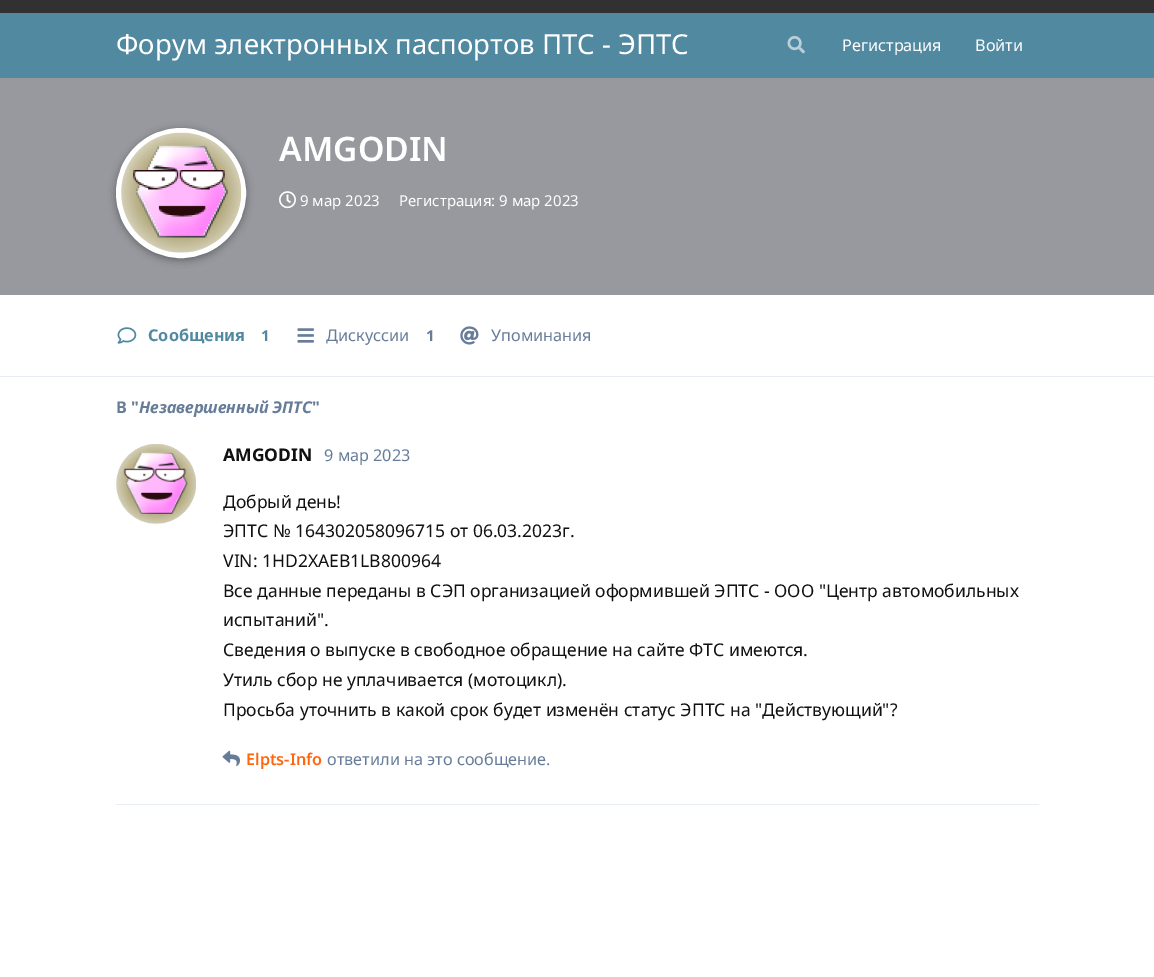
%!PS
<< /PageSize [1154 977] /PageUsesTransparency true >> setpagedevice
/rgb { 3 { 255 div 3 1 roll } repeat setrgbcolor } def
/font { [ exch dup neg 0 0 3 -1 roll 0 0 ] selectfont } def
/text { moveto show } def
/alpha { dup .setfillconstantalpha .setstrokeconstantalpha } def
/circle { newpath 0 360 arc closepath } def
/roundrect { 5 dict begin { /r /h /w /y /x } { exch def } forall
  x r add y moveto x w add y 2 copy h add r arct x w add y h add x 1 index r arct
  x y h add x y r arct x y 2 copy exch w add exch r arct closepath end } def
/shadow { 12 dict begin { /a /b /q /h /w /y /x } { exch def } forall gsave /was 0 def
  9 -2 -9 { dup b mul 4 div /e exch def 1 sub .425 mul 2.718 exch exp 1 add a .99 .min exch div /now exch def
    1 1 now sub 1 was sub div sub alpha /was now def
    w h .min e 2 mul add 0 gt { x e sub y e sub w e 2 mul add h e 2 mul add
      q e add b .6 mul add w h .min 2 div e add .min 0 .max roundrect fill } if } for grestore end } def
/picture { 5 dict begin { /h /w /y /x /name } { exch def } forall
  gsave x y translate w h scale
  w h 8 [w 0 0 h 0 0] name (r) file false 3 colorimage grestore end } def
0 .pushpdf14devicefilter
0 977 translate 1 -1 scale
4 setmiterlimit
255 255 255 rgb
0 0 1154 977 rectfill
49 49 49 rgb
0 0 1154 13 rectfill
81 137 161 rgb
0 13 1154 65 rectfill
(img_01.rgb) 787 35 18 19 picture
151 153 158 rgb
0 78 1154 217 rectfill
0 0 0 rgb
116 130 130 130 65 4 0.35 shadow
232 236 243 rgb
181 193 62.5 circle gsave fill grestore
255 255 255 rgb
5 setlinewidth
stroke
(img_02.rgb) 121 132 121 121 picture
(img_03.rgb) 279 191 17 18 picture
(img_04.rgb) 117 327 20 17 picture
(img_05.rgb) 297 328 17 15 picture
(img_06.rgb) 460 326 19 19 picture
232 236 243 rgb
0 376 1154 1 rectfill
116 804 923 1 rectfill
156 484 40 circle fill
(img_07.rgb) 116 444 81 80 picture
(img_08.rgb) 222 750 18 17 picture
/NotoSans-Regular 27.5 font
255 255 255 rgb
(Форум электронных паспортов ПТС - ЭПТС) 116 54 text
/NotoSans-Regular 16.25 font
(Регистрация) 842 51 text
(Войти) 975 51 text
/NotoSans-SemiBold 33.75 font
(AMGODIN) 279 161 text
/NotoSans-Regular 15 font
(9 мар 2023) 300 206 text
(Регистрация: 9 мар 2023) 399 206 text
/NotoSans-Bold 16.25 font
81 137 161 rgb
(Сообщения) 148 341 text
/NotoSans-Bold 15 font
(1) 261 341 text
/NotoSans-Regular 16.25 font
102 124 153 rgb
(Дискуссии) 326 341 text
/NotoSans-Bold 15 font
(1) 426 341 text
/NotoSans-Regular 16.25 font
(Упоминания) 491 341 text
/NotoSans-Bold 16.25 font
(В ") 116 413 text
/NotoSans-BoldItalic 16.25 font
(Незавершенный ЭПТС) 139 413 text
/NotoSans-Bold 16.25 font
(") 312 413 text
/NotoSans-Bold 17.5 font
17 17 17 rgb
(AMGODIN) 223 461 text
/NotoSans-Regular 16.25 font
102 124 153 rgb
(9 мар 2023) 324 461 text
gsave
223 486 816 255 rectclip
/NotoSans-Regular 17.5 font
17 17 17 rgb
(Добрый день!) 223 508 text
grestore
/NotoSans-Regular 17.5 font
17 17 17 rgb
(ЭПТС № 164302058096715 от 06.03.2023г.) 223 537 text
(VIN: 1HD2XAEB1LB800964) 223 567 text
(Все данные переданы в СЭП организацией оформившей ЭПТС - ООО "Центр автомобильных) 223 597 text
(испытаний".) 223 626 text
(Сведения о выпуске в свободное обращение на сайте ФТС имеются.) 223 656 text
(Утиль сбор не уплачивается \(мотоцикл\).) 223 686 text
(Просьба уточнить в какой срок будет изменён статус ЭПТС на "Действующий"?) 223 716 text
/NotoSans-SemiBold 16.25 font
255 102 13 rgb
(Elpts-Info) 246 765 text
/NotoSans-Regular 16.25 font
102 124 153 rgb
(ответили на это сообщение.) 327 765 text
.poppdf14devicefilter showpage
